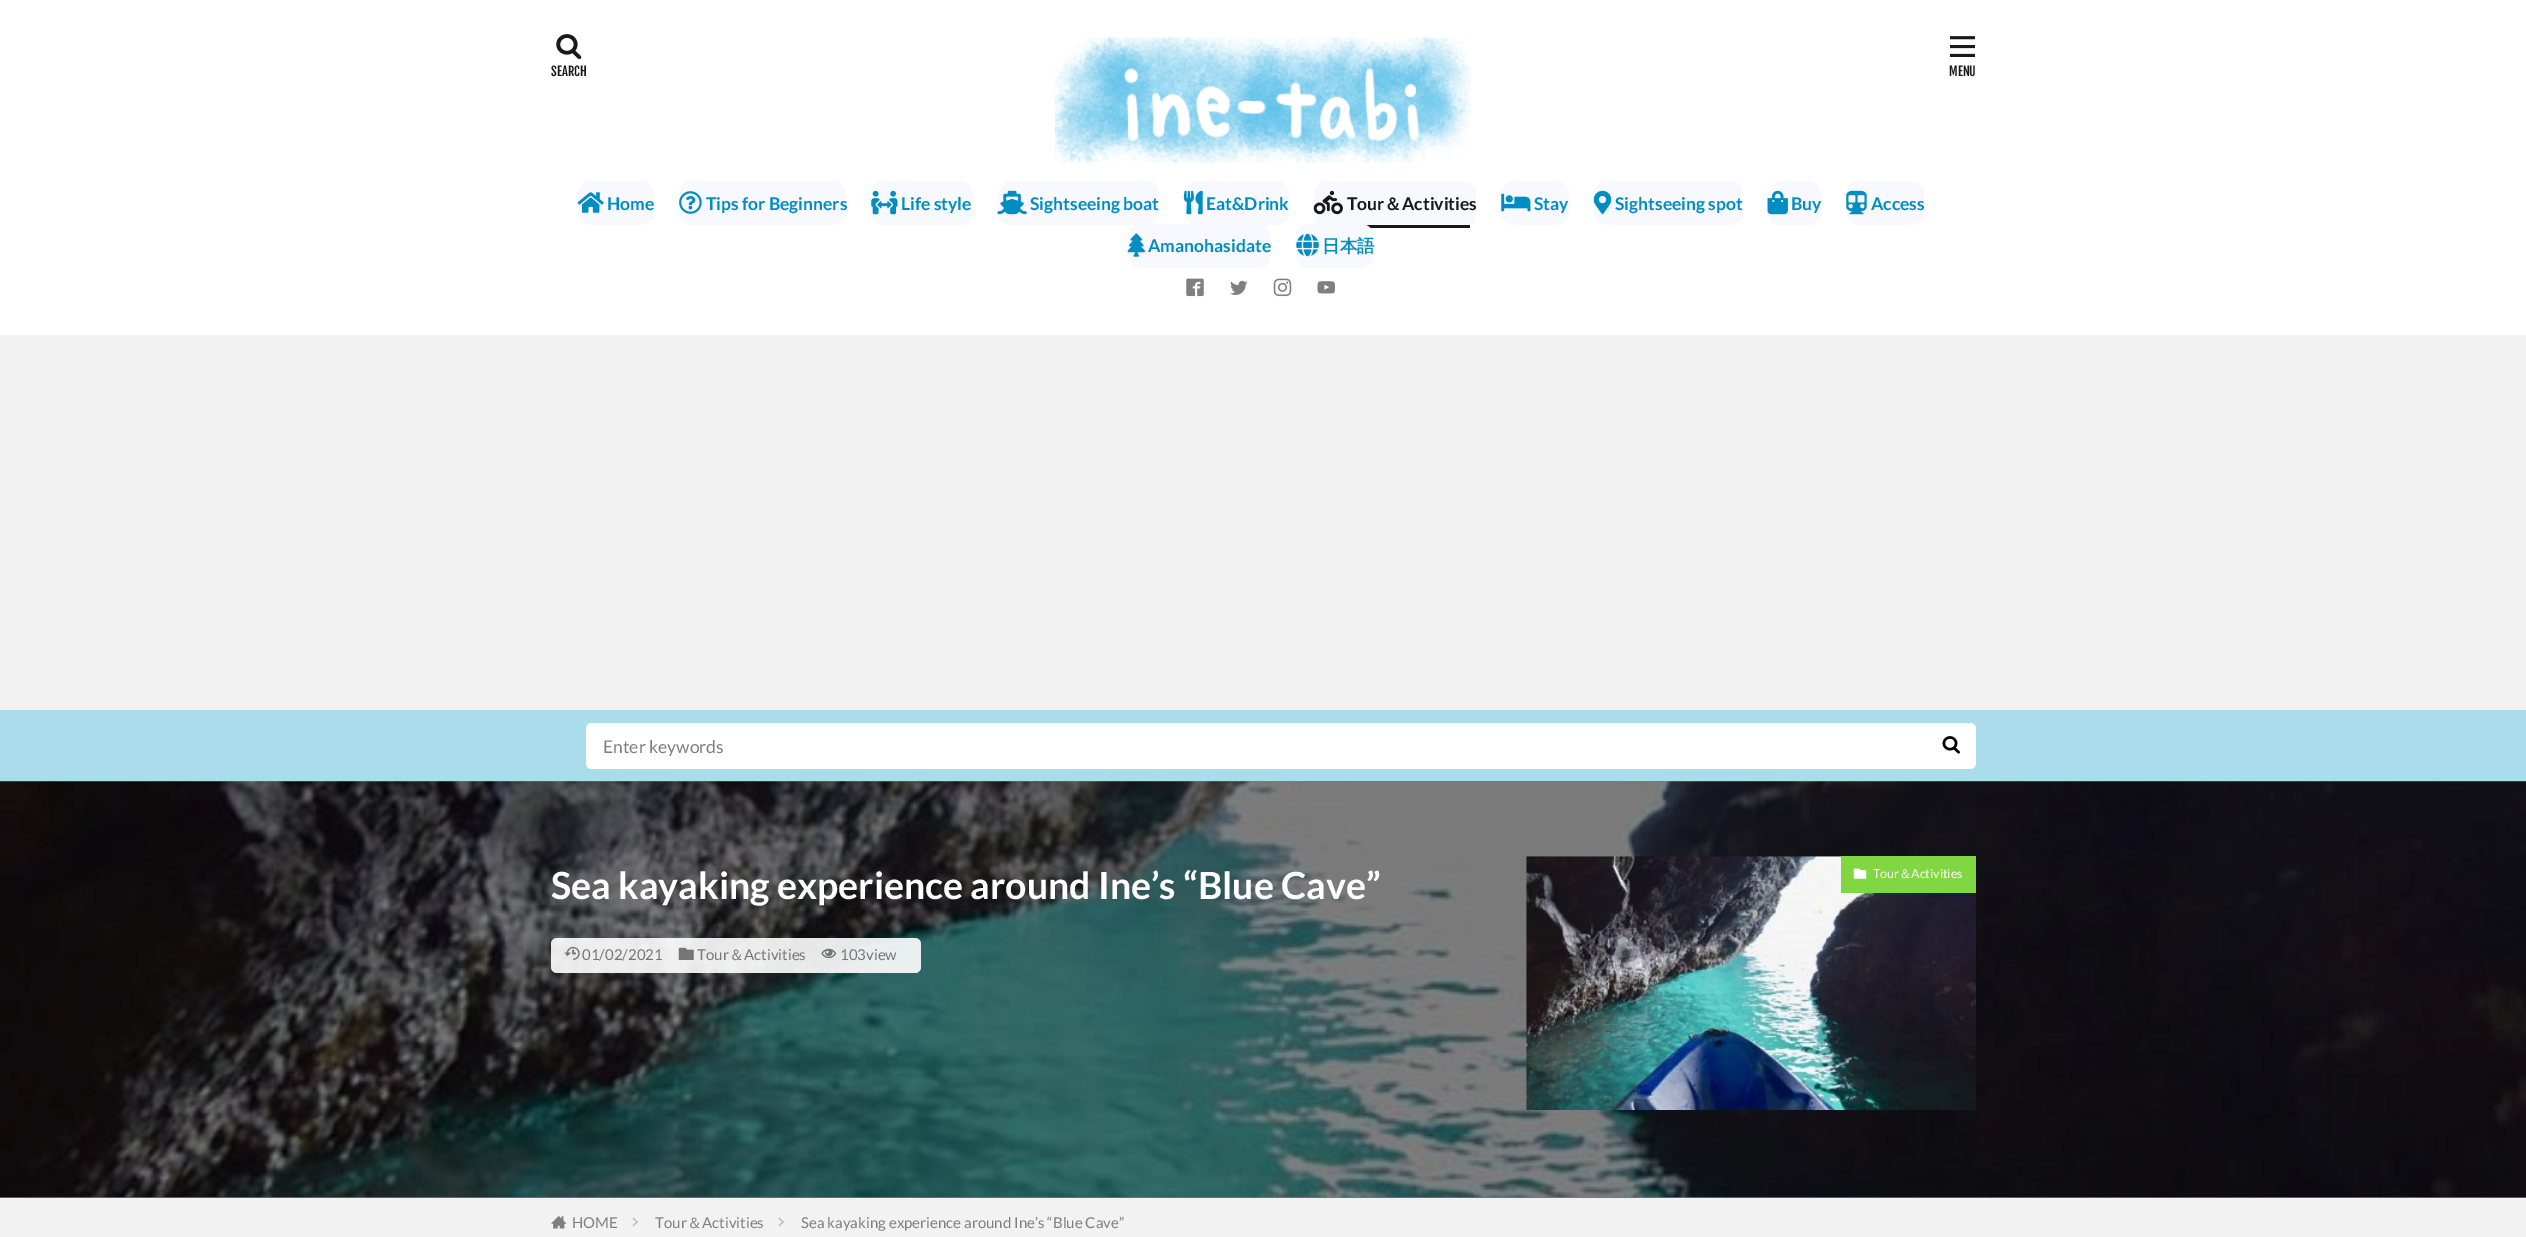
%!PS
<< /PageSize [2526 1237] /PageUsesTransparency true >> setpagedevice
/rgb { 3 { 255 div 3 1 roll } repeat setrgbcolor } def
/font { [ exch dup neg 0 0 3 -1 roll 0 0 ] selectfont } def
/text { moveto show } def
/alpha { dup .setfillconstantalpha .setstrokeconstantalpha } def
/roundrect { 5 dict begin { /r /h /w /y /x } { exch def } forall
  x r add y moveto x w add y 2 copy h add r arct x w add y h add x 1 index r arct
  x y h add x y r arct x y 2 copy exch w add exch r arct closepath end } def
/picture { 5 dict begin { /h /w /y /x /name } { exch def } forall
  gsave x y translate w h scale
  w h 8 [w 0 0 h 0 0] name (r) file false 3 colorimage grestore end } def
0 .pushpdf14devicefilter
0 1237 translate 1 -1 scale
4 setmiterlimit
242 242 242 rgb
0 0 2526 1237 rectfill
121 121 121 rgb
0 781 2526 417 rectfill
255 255 255 rgb
0 0 2526 335 rectfill
(img_01.rgb) 556 34 26 25 picture
(img_02.rgb) 1055 37 417 126 picture
(img_03.rgb) 1950 36 25 21 picture
248 248 255 rgb
578 181 76 44 13 roundrect fill
(img_04.rgb) 577 192 27 21 picture
679 181 167 44 13 roundrect fill
(img_05.rgb) 679 191 23 23 picture
871 181 102 44 13 roundrect fill
(img_06.rgb) 871 190 27 25 picture
998 181 161 44 13 roundrect fill
(img_07.rgb) 997 190 30 25 picture
1184 181 105 44 13 roundrect fill
(img_08.rgb) 1183 190 20 25 picture
1314 181 162 47 13 roundrect fill
0.9 alpha
0 0 0 rgb
1366 225 104 3 rectfill
1 alpha
(img_09.rgb) 1313 190 30 25 picture
248 248 255 rgb
1501 181 68 44 13 roundrect fill
(img_10.rgb) 1501 193 30 19 picture
1594 181 149 44 13 roundrect fill
(img_11.rgb) 1593 190 19 25 picture
1768 181 53 44 13 roundrect fill
(img_12.rgb) 1767 190 21 25 picture
1846 181 78 44 13 roundrect fill
(img_13.rgb) 1846 190 21 25 picture
1128 224 143 44 13 roundrect fill
(img_14.rgb) 1127 233 18 24 picture
1296 224 78 44 13 roundrect fill
(img_15.rgb) 1296 233 23 24 picture
(img_16.rgb) 1186 278 18 19 picture
(img_17.rgb) 1230 280 18 15 picture
(img_18.rgb) 1273 278 19 19 picture
(img_19.rgb) 1317 281 18 13 picture
170 220 235 rgb
0 710 2526 71 rectfill
255 255 255 rgb
592 723 moveto 1334 0 rlineto 0 46 rlineto -1334 0 rlineto -3.5 0 -6 -2.5 -6 -6 rcurveto 0 -34 rlineto 0 -3.5 2.5 -6 6 -6 rcurveto closepath fill
1926 723 moveto 44 0 rlineto 3.5 0 6 2.5 6 6 rcurveto 0 34 rlineto 0 3.5 -2.5 6 -6 6 rcurveto -44 0 rlineto closepath fill
(img_20.rgb) 1942 736 18 18 picture
(img_21.rgb) 0 781 2526 417 picture
0.9 alpha
551 938 370 35 6 roundrect fill
1 alpha
(img_22.rgb) 564 946 16 14 picture
(img_23.rgb) 678 947 16 13 picture
(img_24.rgb) 821 948 16 11 picture
(img_25.rgb) 1526 856 450 254 picture
129 215 66 rgb
1841 856 135 37 rectfill
(img_26.rgb) 1853 868 14 11 picture
(img_27.rgb) 551 1216 16 13 picture
191 191 191 rgb
633.5 1217.5 moveto 4.5 4.5 rlineto -1 1 rlineto -4.5 -4.5 rlineto closepath fill
637 1221 moveto 1 1 rlineto -4.5 4.5 rlineto -1 -1 rlineto closepath fill
779.5 1217.5 moveto 4.5 4.5 rlineto -1 1 rlineto -4.5 -4.5 rlineto closepath fill
783 1221 moveto 1 1 rlineto -4.5 4.5 rlineto -1 -1 rlineto closepath fill
/FjallaOne-Regular 12.5 font
25 25 26 rgb
(SEARCH) 551 76 text
(MENU) 1949 76 text
/Lato-Bold 17.5 font
0 142 194 rgb
(Home) 607 210 text
(Tips for Beginners) 706 210 text
(Life style) 901 210 text
(Sightseeing boat) 1030 210 text
(Eat&Drink) 1206 210 text
25 25 26 rgb
(Tour) 1347 210 text
/WenQuanYiZenHei-Bold 17.5 font
(＆) 1384 210 text
/Lato-Bold 17.5 font
(Activities) 1402 210 text
0 142 194 rgb
(Stay) 1534 210 text
(Sightseeing spot) 1615 210 text
(Buy) 1791 210 text
(Access) 1871 210 text
(Amanohasidate) 1148 252 text
/WenQuanYiZenHei-Bold 17.5 font
(日本語) 1322 252 text
/Lato-Regular 17.5 font
127 127 127 rgb
(Enter keywords) 603 753 text
/Lato-Bold 37.5 font
255 255 255 rgb
(Sea kayaking experience around Ine’s “Blue Cave”) 551 899 text
/Lato-Regular 15 font
118 118 119 rgb
(01/02/2021) 582 960 text
(Tour) 697 960 text
/WenQuanYiZenHei-Medium 15 font
(＆) 729 960 text
/Lato-Regular 15 font
(Activities) 744 960 text
(103view) 840 960 text
/Lato-Regular 12.5 font
255 255 255 rgb
(Tour) 1873 878 text
/WenQuanYiZenHei-Medium 12.5 font
(＆) 1899 878 text
/Lato-Regular 12.5 font
(Activities) 1911 878 text
/Lato-Regular 15 font
127 127 127 rgb
(HOME) 572 1228 text
(Tour) 655 1228 text
/WenQuanYiZenHei-Medium 15 font
(＆) 687 1228 text
/Lato-Regular 15 font
(Activities) 702 1228 text
(Sea kayaking experience around Ine’s “Blue Cave”) 801 1228 text
.poppdf14devicefilter showpage
